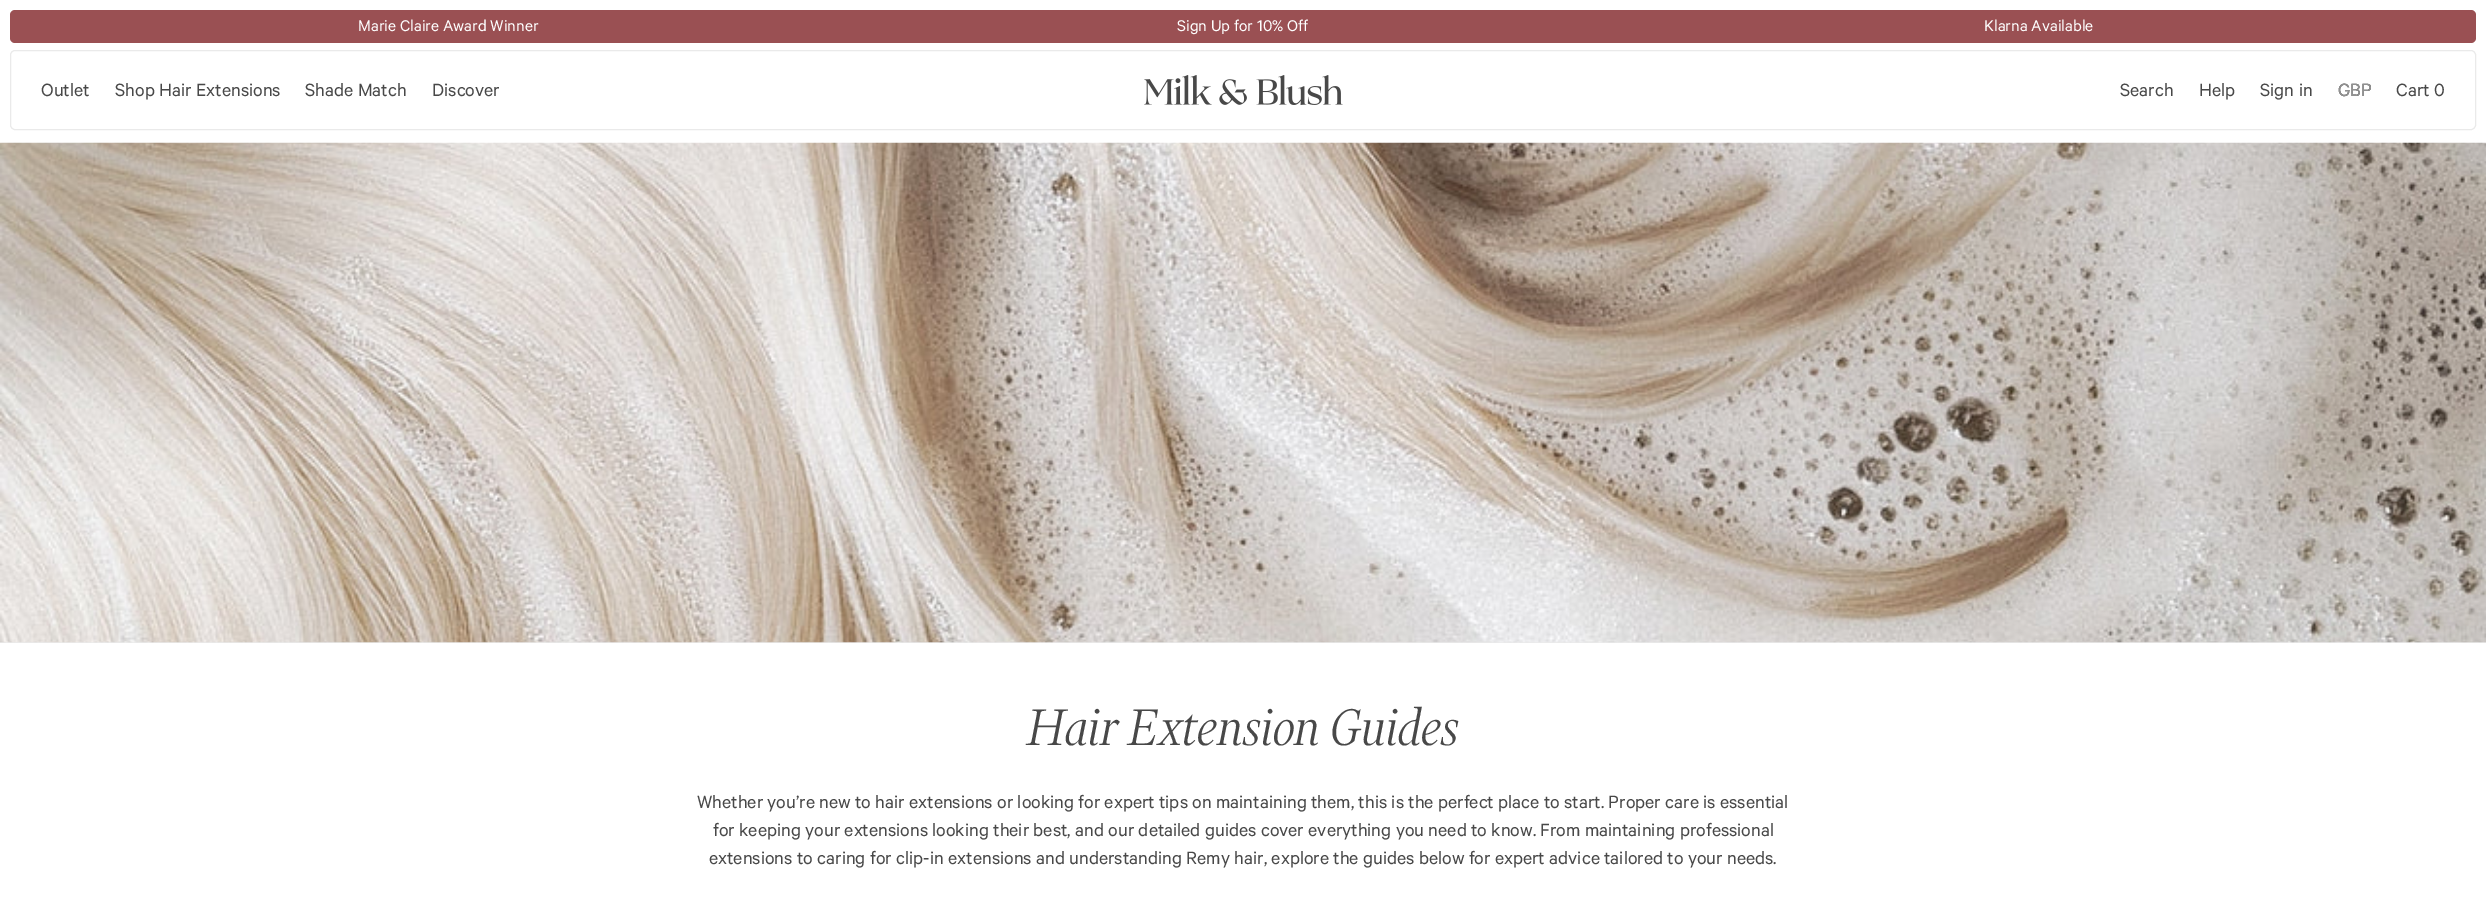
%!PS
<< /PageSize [2486 904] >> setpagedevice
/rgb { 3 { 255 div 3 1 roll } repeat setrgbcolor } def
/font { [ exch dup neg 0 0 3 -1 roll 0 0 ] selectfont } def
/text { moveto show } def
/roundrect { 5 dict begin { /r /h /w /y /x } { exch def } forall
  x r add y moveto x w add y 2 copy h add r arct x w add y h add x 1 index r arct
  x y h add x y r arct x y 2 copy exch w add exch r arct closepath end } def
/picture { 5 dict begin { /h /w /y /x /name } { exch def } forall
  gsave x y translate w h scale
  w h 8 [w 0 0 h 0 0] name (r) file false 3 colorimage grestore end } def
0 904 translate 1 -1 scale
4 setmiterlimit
255 255 255 rgb
0 0 2486 904 rectfill
154 80 83 rgb
10 10 2466 33 5 roundrect fill
234 234 234 rgb
10.5 50.5 2465 79 4.5 roundrect stroke
(img_01.rgb) 1144 75 199 30 picture
0 642 2486 1 rectfill
(img_02.rgb) 0 142 2486 501 picture
/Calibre-Regular 17.5 font
254 254 254 rgb
(Marie Claire Award Winner) 358 31 text
(Sign Up for 10% Off) 1177 31 text
(Klarna Available) 1984 31 text
/Calibre-Regular 20 font
72 72 72 rgb
(Outlet) 41 96 text
(Shop Hair Extensions) 115 96 text
(Shade Match) 305 96 text
(Discover) 432 96 text
(Search) 2120 96 text
(Help) 2199 96 text
(Sign in) 2260 96 text
(GBP) 2338 96 text
145 145 145 rgb
(GBP) 2338 96 text
72 72 72 rgb
(Cart 0) 2396 96 text
/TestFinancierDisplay-LightItalic 58.75 font
(Hair Extension Guides) 1027 745 text
/Calibre-Regular 20 font
(Whether you’re new to hair extensions or looking for expert tips on maintaining them, this is the perfect place to start. Proper care is essential) 697 808 text
(for keeping your extensions looking their best, and our detailed guides cover everything you need to know. From maintaining professional) 713 836 text
(extensions to caring for clip-in extensions and understanding Remy hair, explore the guides below for expert advice tailored to your needs.) 709 864 text
showpage
